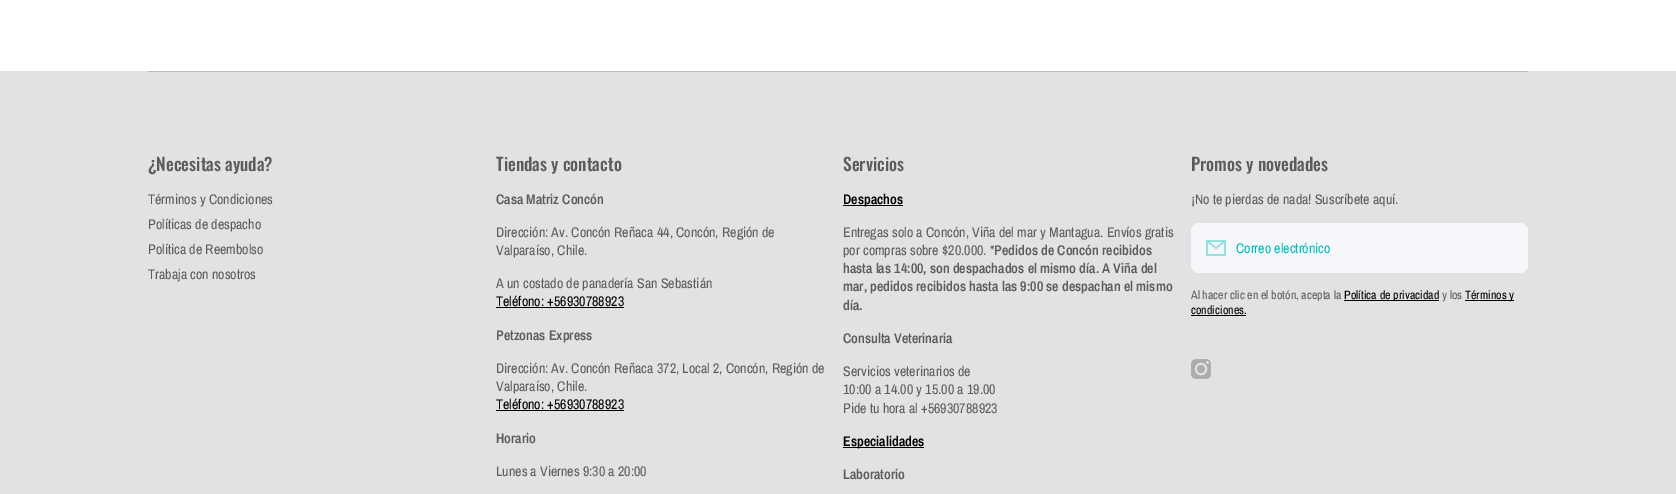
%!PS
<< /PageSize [1676 494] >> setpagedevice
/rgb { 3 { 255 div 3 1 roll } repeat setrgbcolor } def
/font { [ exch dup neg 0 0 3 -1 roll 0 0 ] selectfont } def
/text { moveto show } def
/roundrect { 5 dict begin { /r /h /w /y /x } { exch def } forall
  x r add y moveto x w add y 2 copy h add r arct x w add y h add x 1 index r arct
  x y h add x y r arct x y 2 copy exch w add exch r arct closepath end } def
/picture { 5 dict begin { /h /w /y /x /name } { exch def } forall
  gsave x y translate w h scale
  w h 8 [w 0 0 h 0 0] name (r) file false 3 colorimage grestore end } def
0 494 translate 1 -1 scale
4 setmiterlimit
255 255 255 rgb
0 0 1676 494 rectfill
226 226 226 rgb
0 71 1676 423 rectfill
186 186 186 rgb
148 71 1380 1 rectfill
0 0 0 rgb
496 307 128 1 rectfill
496 410 128 1 rectfill
843 205 60 1 rectfill
843 447 81 1 rectfill
246 247 250 rgb
1191 223 337 50 8 roundrect fill
(img_01.rgb) 1206 240 20 16 picture
0 0 0 rgb
1344 300 95 1 rectfill
1465 300 49 1 rectfill
1191 315 55 1 rectfill
(img_02.rgb) 1191 359 20 20 picture
/Oswald-Medium 17.5 font
92 92 92 rgb
(¿Necesitas ayuda?) 148 171 text
/ArchivoNarrow-Regular 14 font
(Términos y Condiciones) 148 204 text
(Políticas de despacho) 148 229 text
(Política de Reembolso) 148 254 text
(Trabaja con nosotros) 148 279 text
/Oswald-Medium 17.5 font
(Tiendas y contacto) 496 171 text
/ArchivoNarrow-SemiBold 14 font
(Casa Matriz Concón) 496 204 text
/ArchivoNarrow-Regular 14 font
(Dirección: Av. Concón Reñaca 44, Concón, Región de) 496 237 text
(Valparaíso, Chile.) 496 255 text
(A un costado de panadería San Sebastián) 496 288 text
0 0 0 rgb
(Teléfono: +56930788923) 496 306 text
/ArchivoNarrow-SemiBold 14 font
92 92 92 rgb
(Petzonas Express) 496 340 text
/ArchivoNarrow-Regular 14 font
(Dirección: Av. Concón Reñaca 372, Local 2, Concón, Región de) 496 373 text
(Valparaíso, Chile.) 496 391 text
0 0 0 rgb
(Teléfono: +56930788923) 496 409 text
/ArchivoNarrow-SemiBold 14 font
92 92 92 rgb
(Horario) 496 443 text
/ArchivoNarrow-Regular 14 font
(Lunes a Viernes 9:30 a 20:00) 496 476 text
/Oswald-Medium 17.5 font
(Servicios) 843 171 text
/ArchivoNarrow-SemiBold 14 font
0 0 0 rgb
(Despachos) 843 204 text
/ArchivoNarrow-Regular 14 font
92 92 92 rgb
(Entregas solo a Concón, Viña del mar y Mantagua. Envíos gratis) 843 237 text
(por compras sobre $20.000. *) 843 255 text
/ArchivoNarrow-SemiBold 14 font
(Pedidos de Concón recibidos) 994 255 text
(hasta las 14:00, son despachados el mismo día. A Viña del) 843 273 text
(mar, pedidos recibidos hasta las 9:00 se despachan el mismo) 843 291 text
(día.) 843 310 text
(Consulta Veterinaria) 843 343 text
/ArchivoNarrow-Regular 14 font
(Servicios veterinarios de) 843 376 text
(10:00 a 14.00 y 15.00 a 19.00) 843 394 text
(Pide tu hora al +56930788923) 843 413 text
/ArchivoNarrow-SemiBold 14 font
0 0 0 rgb
(Especialidades) 843 446 text
92 92 92 rgb
(Laboratorio) 843 479 text
/Oswald-Medium 17.5 font
(Promos y novedades) 1191 171 text
/ArchivoNarrow-Regular 14 font
(¡No te pierdas de nada! Suscríbete aquí.) 1191 204 text
0 191 186 rgb
(Correo electrónico) 1236 253 text
/ArchivoNarrow-Regular 12 font
92 92 92 rgb
(Al hacer clic en el botón, acepta la) 1191 299 text
0 0 0 rgb
(Política de privacidad) 1344 299 text
92 92 92 rgb
(y los) 1442 299 text
0 0 0 rgb
(Términos y) 1465 299 text
(condiciones.) 1191 314 text
showpage
